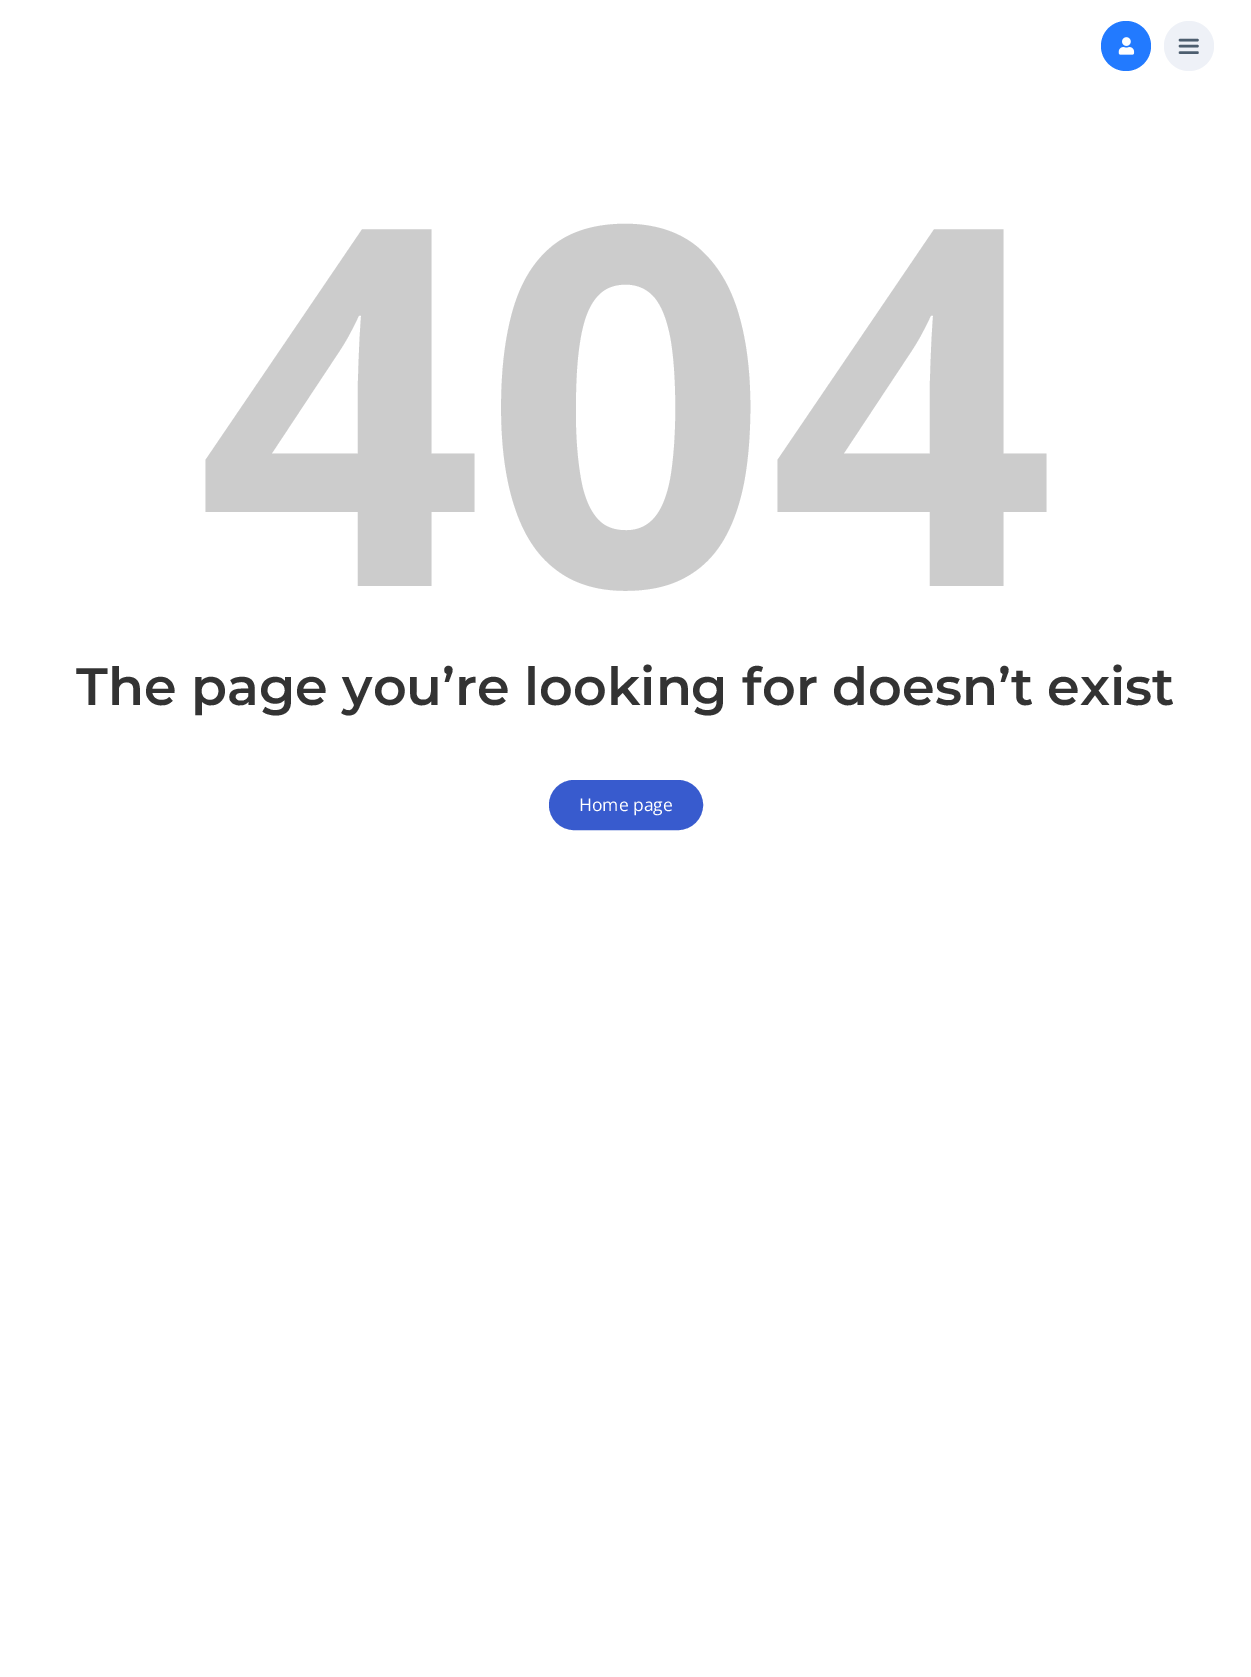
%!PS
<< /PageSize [1251 1677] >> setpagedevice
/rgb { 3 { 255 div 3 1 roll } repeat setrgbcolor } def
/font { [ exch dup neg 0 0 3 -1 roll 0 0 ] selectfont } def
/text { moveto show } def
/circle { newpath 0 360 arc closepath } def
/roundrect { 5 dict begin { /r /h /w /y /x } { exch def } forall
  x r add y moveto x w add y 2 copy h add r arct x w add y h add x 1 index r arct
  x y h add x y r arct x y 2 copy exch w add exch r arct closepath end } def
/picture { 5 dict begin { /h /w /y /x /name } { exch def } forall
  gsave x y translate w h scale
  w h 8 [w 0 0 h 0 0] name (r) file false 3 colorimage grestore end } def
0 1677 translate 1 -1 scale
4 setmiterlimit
255 255 255 rgb
0 0 1251 1677 rectfill
34 122 255 rgb
1126 46 25 circle fill
(img_01.rgb) 1118 37 17 18 picture
238 241 247 rgb
1189 46 25 circle fill
77 94 111 rgb
2.5 setlinewidth
1 setlinecap
1 setlinejoin
1180 40 moveto 17.5 0 rlineto 1180 46 moveto 17.5 0 rlineto 1180 52.5 moveto 17.5 0 rlineto stroke
56 91 206 rgb
550.5 781.5 151 47 23.5 roundrect gsave fill grestore
3 setlinewidth
0 setlinecap
0 setlinejoin
stroke
/OpenSans-Bold 500 font
204 204 204 rgb
(404) 197 586 text
/Montserrat-SemiBold 52.5 font
51 51 51 rgb
(The page you’re looking for doesn’t exist) 76 705 text
/OpenSans-Regular 17.5 font
255 255 255 rgb
(Home page) 579 811 text
showpage
